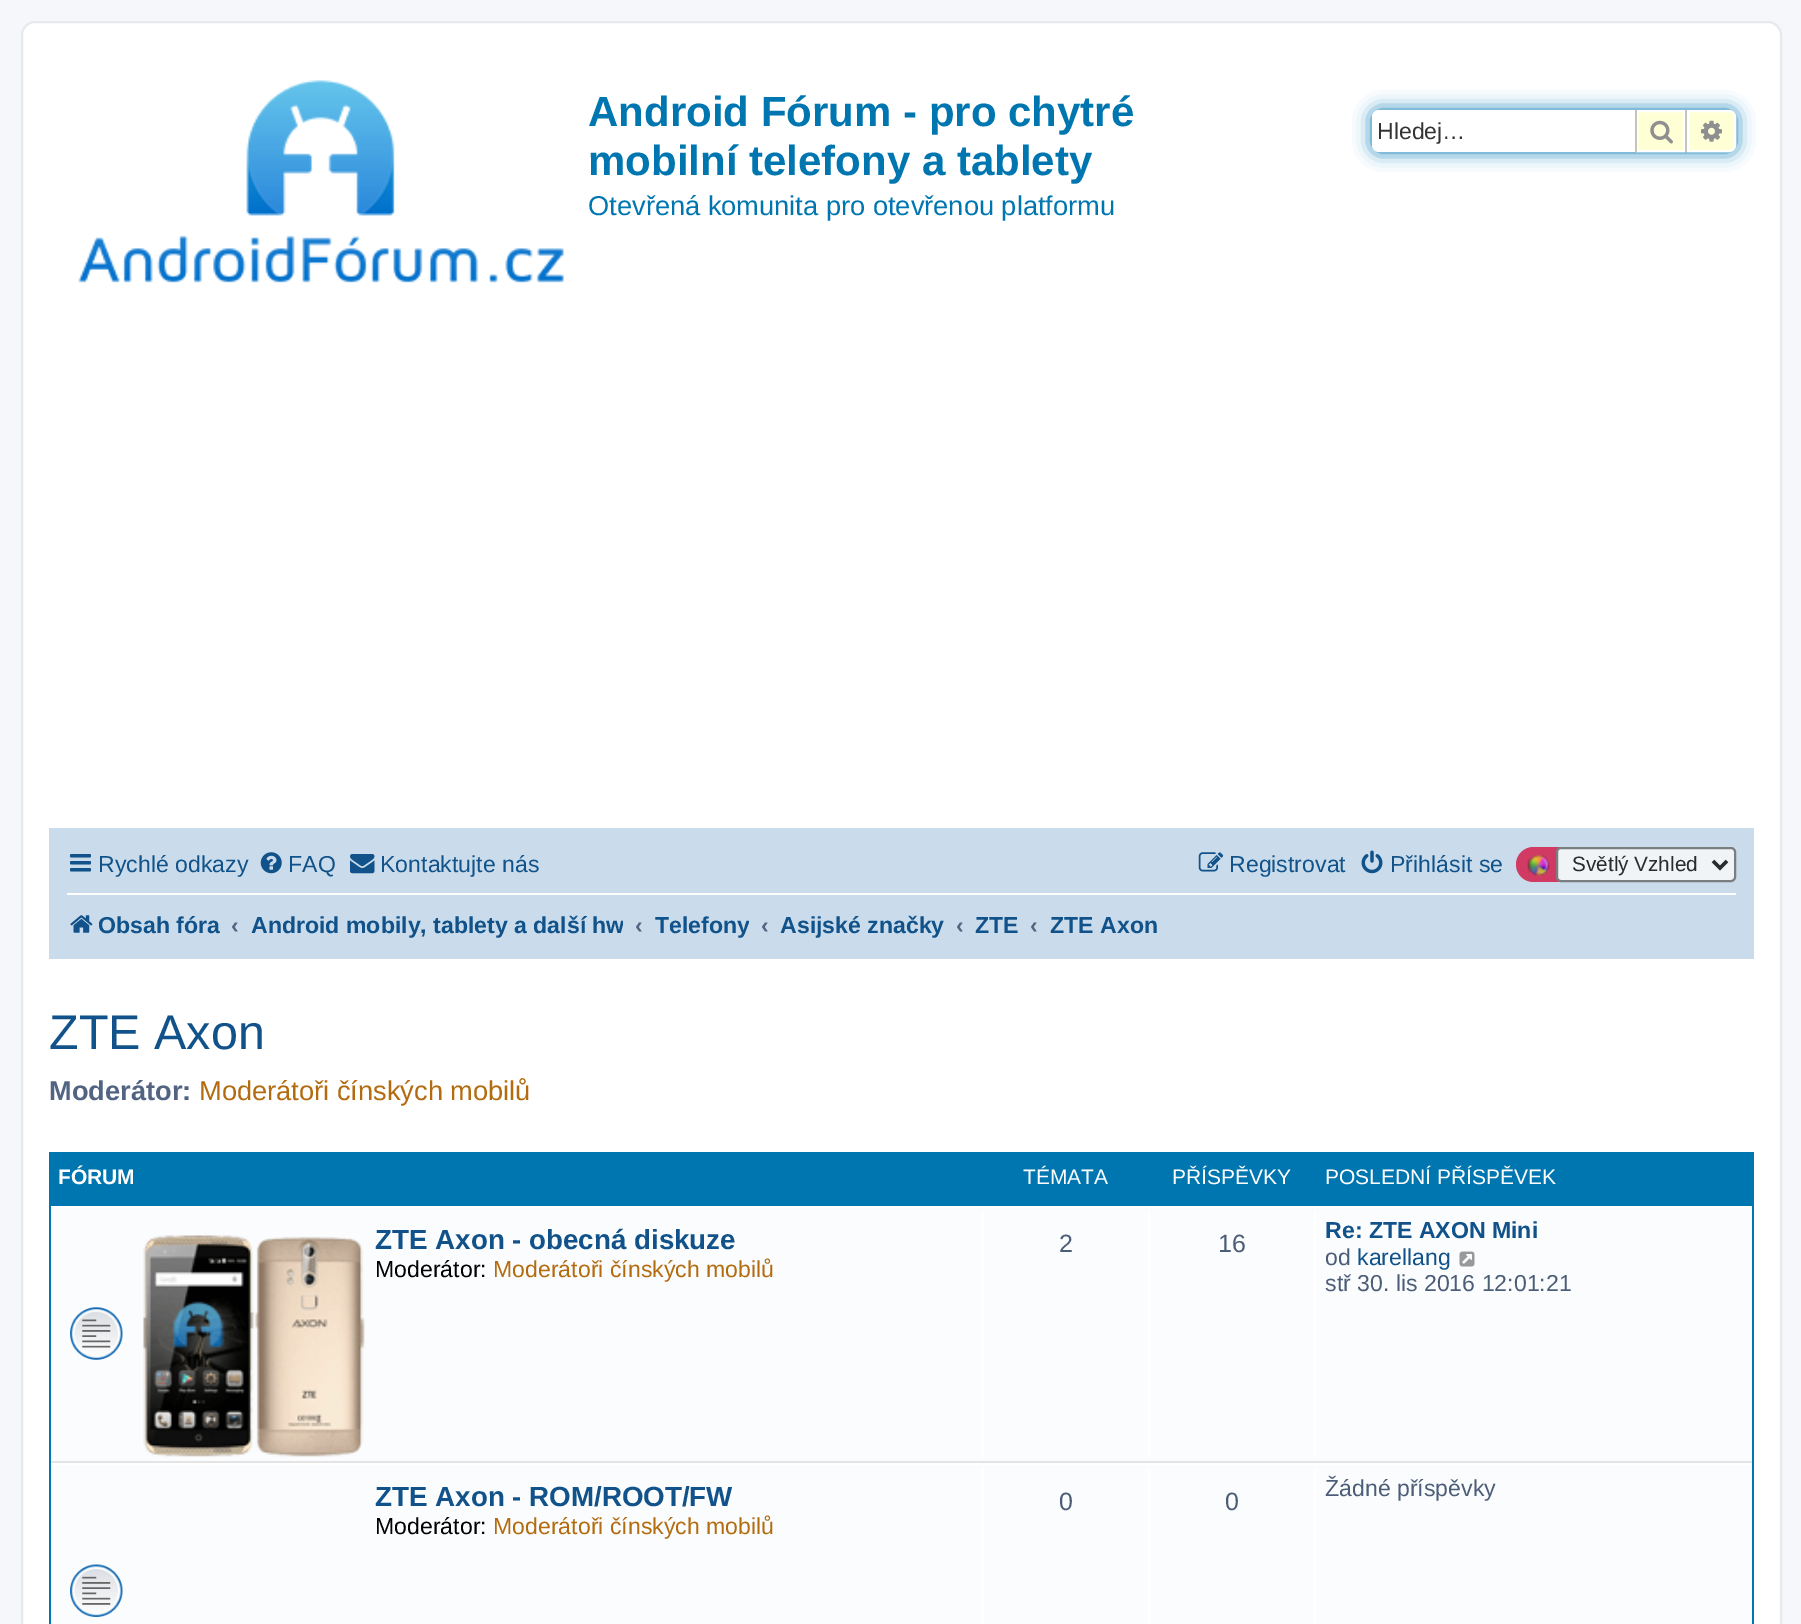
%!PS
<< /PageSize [1801 1624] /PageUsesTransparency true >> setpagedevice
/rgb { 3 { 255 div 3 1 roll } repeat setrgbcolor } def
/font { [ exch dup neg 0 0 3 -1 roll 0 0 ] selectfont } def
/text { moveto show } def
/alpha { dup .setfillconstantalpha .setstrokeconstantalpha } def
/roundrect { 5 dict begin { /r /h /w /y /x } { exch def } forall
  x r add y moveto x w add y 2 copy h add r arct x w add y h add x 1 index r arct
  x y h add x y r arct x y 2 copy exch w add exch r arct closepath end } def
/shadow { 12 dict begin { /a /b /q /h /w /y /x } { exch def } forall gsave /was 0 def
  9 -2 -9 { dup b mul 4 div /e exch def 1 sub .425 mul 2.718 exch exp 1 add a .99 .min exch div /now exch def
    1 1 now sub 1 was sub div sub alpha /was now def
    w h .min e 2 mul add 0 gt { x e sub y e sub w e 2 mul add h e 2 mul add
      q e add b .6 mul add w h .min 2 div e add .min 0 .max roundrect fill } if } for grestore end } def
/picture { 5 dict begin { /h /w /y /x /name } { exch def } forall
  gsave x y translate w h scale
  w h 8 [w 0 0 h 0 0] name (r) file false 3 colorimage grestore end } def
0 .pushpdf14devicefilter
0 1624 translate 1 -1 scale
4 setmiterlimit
245 247 250 rgb
0 0 1801 1624 rectfill
255 255 255 rgb
22 22 1759 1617 13 roundrect gsave fill grestore
230 233 237 rgb
2 setlinewidth
stroke
(img_01.rgb) 78 80 486 203 picture
0 117 176 rgb
1372 110 364 42 7 9 1 shadow
255 255 255 rgb
1379 110 moveto 256 0 rlineto 0 42 rlineto -256 0 rlineto -4 0 -7 -3 -7 -7 rcurveto 0 -28 rlineto 0 -4 3 -7 7 -7 rcurveto closepath fill
255 255 214 rgb
1637 111 moveto 47 0 rlineto 0 40 rlineto -47 0 rlineto closepath gsave fill grestore
255 255 255 rgb
stroke
199 195 191 rgb
1685 110 2 42 rectfill
1635 110 2 42 rectfill
(img_02.rgb) 1650 120 23 24 picture
255 255 214 rgb
1688 111 moveto 41 0 rlineto 3.5 0 6 2.5 6 6 rcurveto 0 28 rlineto 0 3.5 -2.5 6 -6 6 rcurveto -41 0 rlineto closepath gsave fill grestore
255 255 255 rgb
stroke
(img_03.rgb) 1701 120 21 22 picture
202 220 235 rgb
49 828 1705 131 rectfill
(img_04.rgb) 70 854 21 18 picture
(img_05.rgb) 260 852 22 22 picture
(img_06.rgb) 350 854 25 20 picture
(img_07.rgb) 1198 852 26 20 picture
(img_08.rgb) 1361 850 22 24 picture
209 58 99 rgb
1516 847 220 35 17.5 roundrect fill
(img_09.rgb) 1527 854 23 22 picture
240 244 247 rgb
1557 848 178 33 4 roundrect gsave fill grestore
122 126 129 rgb
stroke
40 44 47 rgb
3.5 setlinewidth
1713 861 moveto 7 7 rlineto 7 -7 rlineto stroke
255 255 255 rgb
67 893 1669 2 rectfill
(img_10.rgb) 70 915 23 18 picture
0 118 177 rgb
49 1152 1705 472 rectfill
251 252 253 rgb
51 1208 1701 416 rectfill
255 255 255 rgb
51 1206 1701 2 rectfill
228 228 228 rgb
51 1461 1701 2 rectfill
(img_11.rgb) 70 1307 53 53 picture
(img_12.rgb) 143 1235 222 222 picture
255 255 255 rgb
982 1211 2 247 rectfill
1148 1211 2 247 rectfill
1314 1211 2 247 rectfill
(img_13.rgb) 1459 1251 16 16 picture
51 1463 1701 2 rectfill
(img_14.rgb) 70 1564 53 53 picture
982 1468 2 156 rectfill
1148 1468 2 156 rectfill
1314 1468 2 156 rectfill
/LiberationSans-Bold 42 font
0 118 177 rgb
(Android Fórum - pro chytré) 588 126 text
(mobilní telefony a tablety) 588 175 text
/LiberationSans-Regular 27.25 font
(Otevřená komunita pro otevřenou platformu) 588 215 text
/LiberationSans-Regular 23.1 font
51 51 51 rgb
(Hledej…) 1377 139 text
16 82 137 rgb
(Rychlé odkazy) 98 872 text
(FAQ) 288 872 text
(Kontaktujte nás) 380 872 text
(Registrovat) 1229 872 text
(Přihlásit se) 1390 872 text
/LiberationSans-Regular 20.75 font
40 44 47 rgb
(Světlý Vzhled) 1572 871 text
/LiberationSans-Bold 23.1 font
16 82 137 rgb
(Obsah fóra) 98 933 text
83 100 130 rgb
(‹) 231 933 text
gsave
250 900 373 50 rectclip
16 82 137 rgb
(Android mobily, tablety a další hw) 251 933 text
grestore
(‹) 635 933 text
gsave
655 900 94 50 rectclip
16 82 137 rgb
(Telefony) 655 933 text
grestore
(‹) 761 933 text
16 82 137 rgb
(Asijské značky) 780 933 text
83 100 130 rgb
(‹) 956 933 text
16 82 137 rgb
(ZTE) 975 933 text
83 100 130 rgb
(‹) 1030 933 text
16 82 137 rgb
(ZTE Axon) 1050 933 text
/LiberationSans-Regular 48.5 font
(ZTE Axon) 49 1049 text
/LiberationSans-Bold 27.25 font
83 100 130 rgb
(Moderátor:) 49 1100 text
/LiberationSans-Regular 27.25 font
179 107 16 rgb
(Moderátoři čínských mobilů) 199 1100 text
/LiberationSans-Bold 21 font
255 255 255 rgb
(FÓRUM) 58 1184 text
/LiberationSans-Regular 21 font
(TÉMATA) 1023 1184 text
(PŘÍSPĚVKY) 1172 1184 text
(POSLEDNÍ PŘÍSPĚVEK) 1325 1184 text
/LiberationSans-Bold 27.75 font
16 82 137 rgb
(ZTE Axon - obecná diskuze) 375 1249 text
/LiberationSans-Regular 23.1 font
0 0 0 rgb
(Moderátor:) 375 1277 text
179 107 16 rgb
(Moderátoři čínských mobilů) 493 1277 text
/LiberationSans-Regular 25 font
76 93 119 rgb
(2) 1059 1252 text
(16) 1218 1252 text
/LiberationSans-Bold 23.1 font
16 82 137 rgb
(Re: ZTE AXON Mini) 1325 1238 text
/LiberationSans-Regular 23.1 font
76 93 119 rgb
(od) 1325 1265 text
16 82 137 rgb
(karellang) 1357 1265 text
76 93 119 rgb
(stř 30. lis 2016 12:01:21) 1325 1291 text
/LiberationSans-Bold 27.75 font
16 82 137 rgb
(ZTE Axon - ROM/ROOT/FW) 375 1506 text
/LiberationSans-Regular 23.1 font
0 0 0 rgb
(Moderátor:) 375 1534 text
179 107 16 rgb
(Moderátoři čínských mobilů) 493 1534 text
/LiberationSans-Regular 25 font
76 93 119 rgb
(0) 1059 1510 text
(0) 1225 1510 text
/LiberationSans-Regular 23.1 font
(Žádné příspěvky) 1325 1496 text
.poppdf14devicefilter showpage
